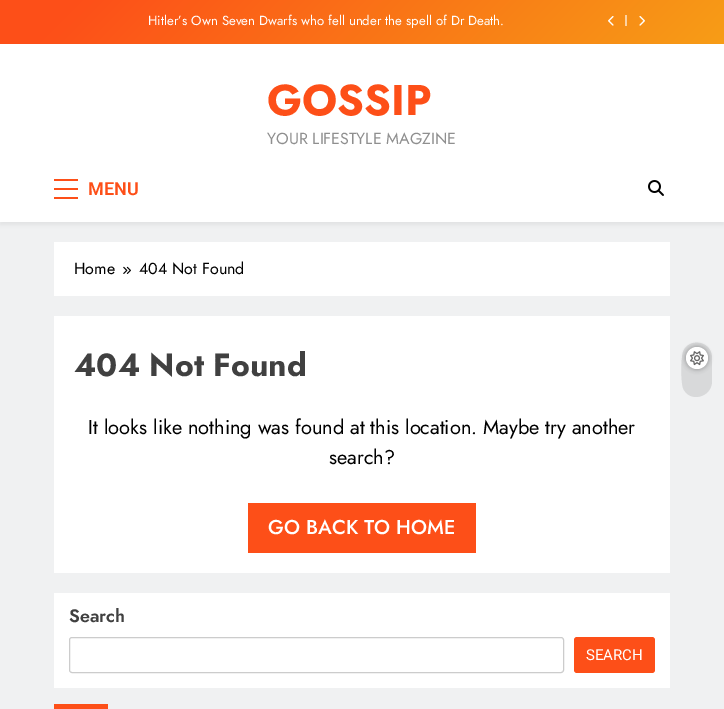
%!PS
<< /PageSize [724 709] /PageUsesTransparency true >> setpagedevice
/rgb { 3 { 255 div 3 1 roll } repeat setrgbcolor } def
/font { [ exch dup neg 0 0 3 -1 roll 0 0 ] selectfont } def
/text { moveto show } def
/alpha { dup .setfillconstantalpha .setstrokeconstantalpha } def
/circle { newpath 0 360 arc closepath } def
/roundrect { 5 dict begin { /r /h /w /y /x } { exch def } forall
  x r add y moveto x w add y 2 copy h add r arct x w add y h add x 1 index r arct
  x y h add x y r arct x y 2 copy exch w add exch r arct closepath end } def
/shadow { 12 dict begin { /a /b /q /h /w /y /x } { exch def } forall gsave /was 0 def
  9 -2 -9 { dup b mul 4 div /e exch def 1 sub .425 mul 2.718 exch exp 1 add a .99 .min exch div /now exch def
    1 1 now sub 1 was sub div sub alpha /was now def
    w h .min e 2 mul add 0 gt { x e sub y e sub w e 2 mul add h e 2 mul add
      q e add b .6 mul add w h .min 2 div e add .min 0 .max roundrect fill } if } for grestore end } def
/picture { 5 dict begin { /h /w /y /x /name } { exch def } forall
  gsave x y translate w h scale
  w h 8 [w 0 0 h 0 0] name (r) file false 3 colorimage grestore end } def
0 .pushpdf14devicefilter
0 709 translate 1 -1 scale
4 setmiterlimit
240 241 242 rgb
0 0 724 709 rectfill
gsave 0 0 moveto 724 0 rlineto 0 44 rlineto -724 0 rlineto closepath clip newpath
<< /ShadingType 2 /ColorSpace /DeviceRGB /Coords [170 -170 554 214] /Extend [true true] /Function << /FunctionType 3 /Domain [0 1] /Functions [<< /FunctionType 2 /Domain [0 1] /C0 [0.992 0.31 0.094] /C1 [0.992 0.31 0.094] /N 1 >> << /FunctionType 2 /Domain [0 1] /C0 [0.992 0.31 0.094] /C1 [0.969 0.616 0.086] /N 1 >>] /Bounds [0.1] /Encode [0 1 0 1] >> >> shfill grestore
(img_01.rgb) 608 16 6 10 picture
252 210 162 rgb
625 15 2 11 rectfill
(img_02.rgb) 639 16 6 10 picture
0 0 0 rgb
0 47 724 178 0 2 0.05 shadow
255 255 255 rgb
0 44 724 178 rectfill
253 79 24 rgb
54 179 24 2 rectfill
54 188 24 2 rectfill
54 197 24 2 rectfill
(img_03.rgb) 648 180 16 16 picture
216 217 218 rgb
712 358 moveto 0 24 rlineto -1 16 -23 21 -29 6 rcurveto -2 -6 -2 -24 -1 -30 rcurveto 0 -21 30 -20 30 0 rcurveto closepath fill
0 0 0 rgb
686 347 22 22 11 2.5 0.35 shadow
255 255 255 rgb
697 358 11 circle fill
(img_04.rgb) 690 351 14 15 picture
54 242 616 54 rectfill
(img_05.rgb) 123 266 8 8 picture
54 316 616 257 rectfill
253 79 24 rgb
248 503 228 50 rectfill
255 255 255 rgb
54 593 616 95 rectfill
204 204 204 rgb
69.5 637.5 494 35 2.5 roundrect stroke
253 79 24 rgb
574 637 81 36 3 roundrect fill
54 704 54 5 rectfill
/Jost-Regular 13.2 font
255 255 255 rgb
(Hitler’s Own Seven Dwarfs who fell under the spell of Dr Death.) 148 25 text
/Jost-Bold 43 font
253 79 24 rgb
(GOSSIP) 267 115 text
/Jost-Regular 16 font
143 143 143 rgb
(YOUR LIFESTYLE MAGZINE) 267 144 text
/Roboto-SemiBold 18 font
253 79 24 rgb
(MENU) 88 195 text
/Jost-Regular 16 font
0 0 0 rgb
(Home) 74 274 text
(404 Not Found) 139 274 text
/Jost-Bold 32 font
64 64 64 rgb
(404 Not Found) 74 376 text
/Jost-Regular 20 font
0 0 0 rgb
(It looks like nothing was found at this location. Maybe try another) 88 434 text
(search?) 329 464 text
/Jost-Medium 20 font
255 255 255 rgb
(GO BACK TO HOME) 268 534 text
/Jost-SemiBold 18 font
64 64 64 rgb
(Search) 69 622 text
/Roboto-Regular 15 font
255 255 255 rgb
(SEARCH) 586 660 text
.poppdf14devicefilter showpage
